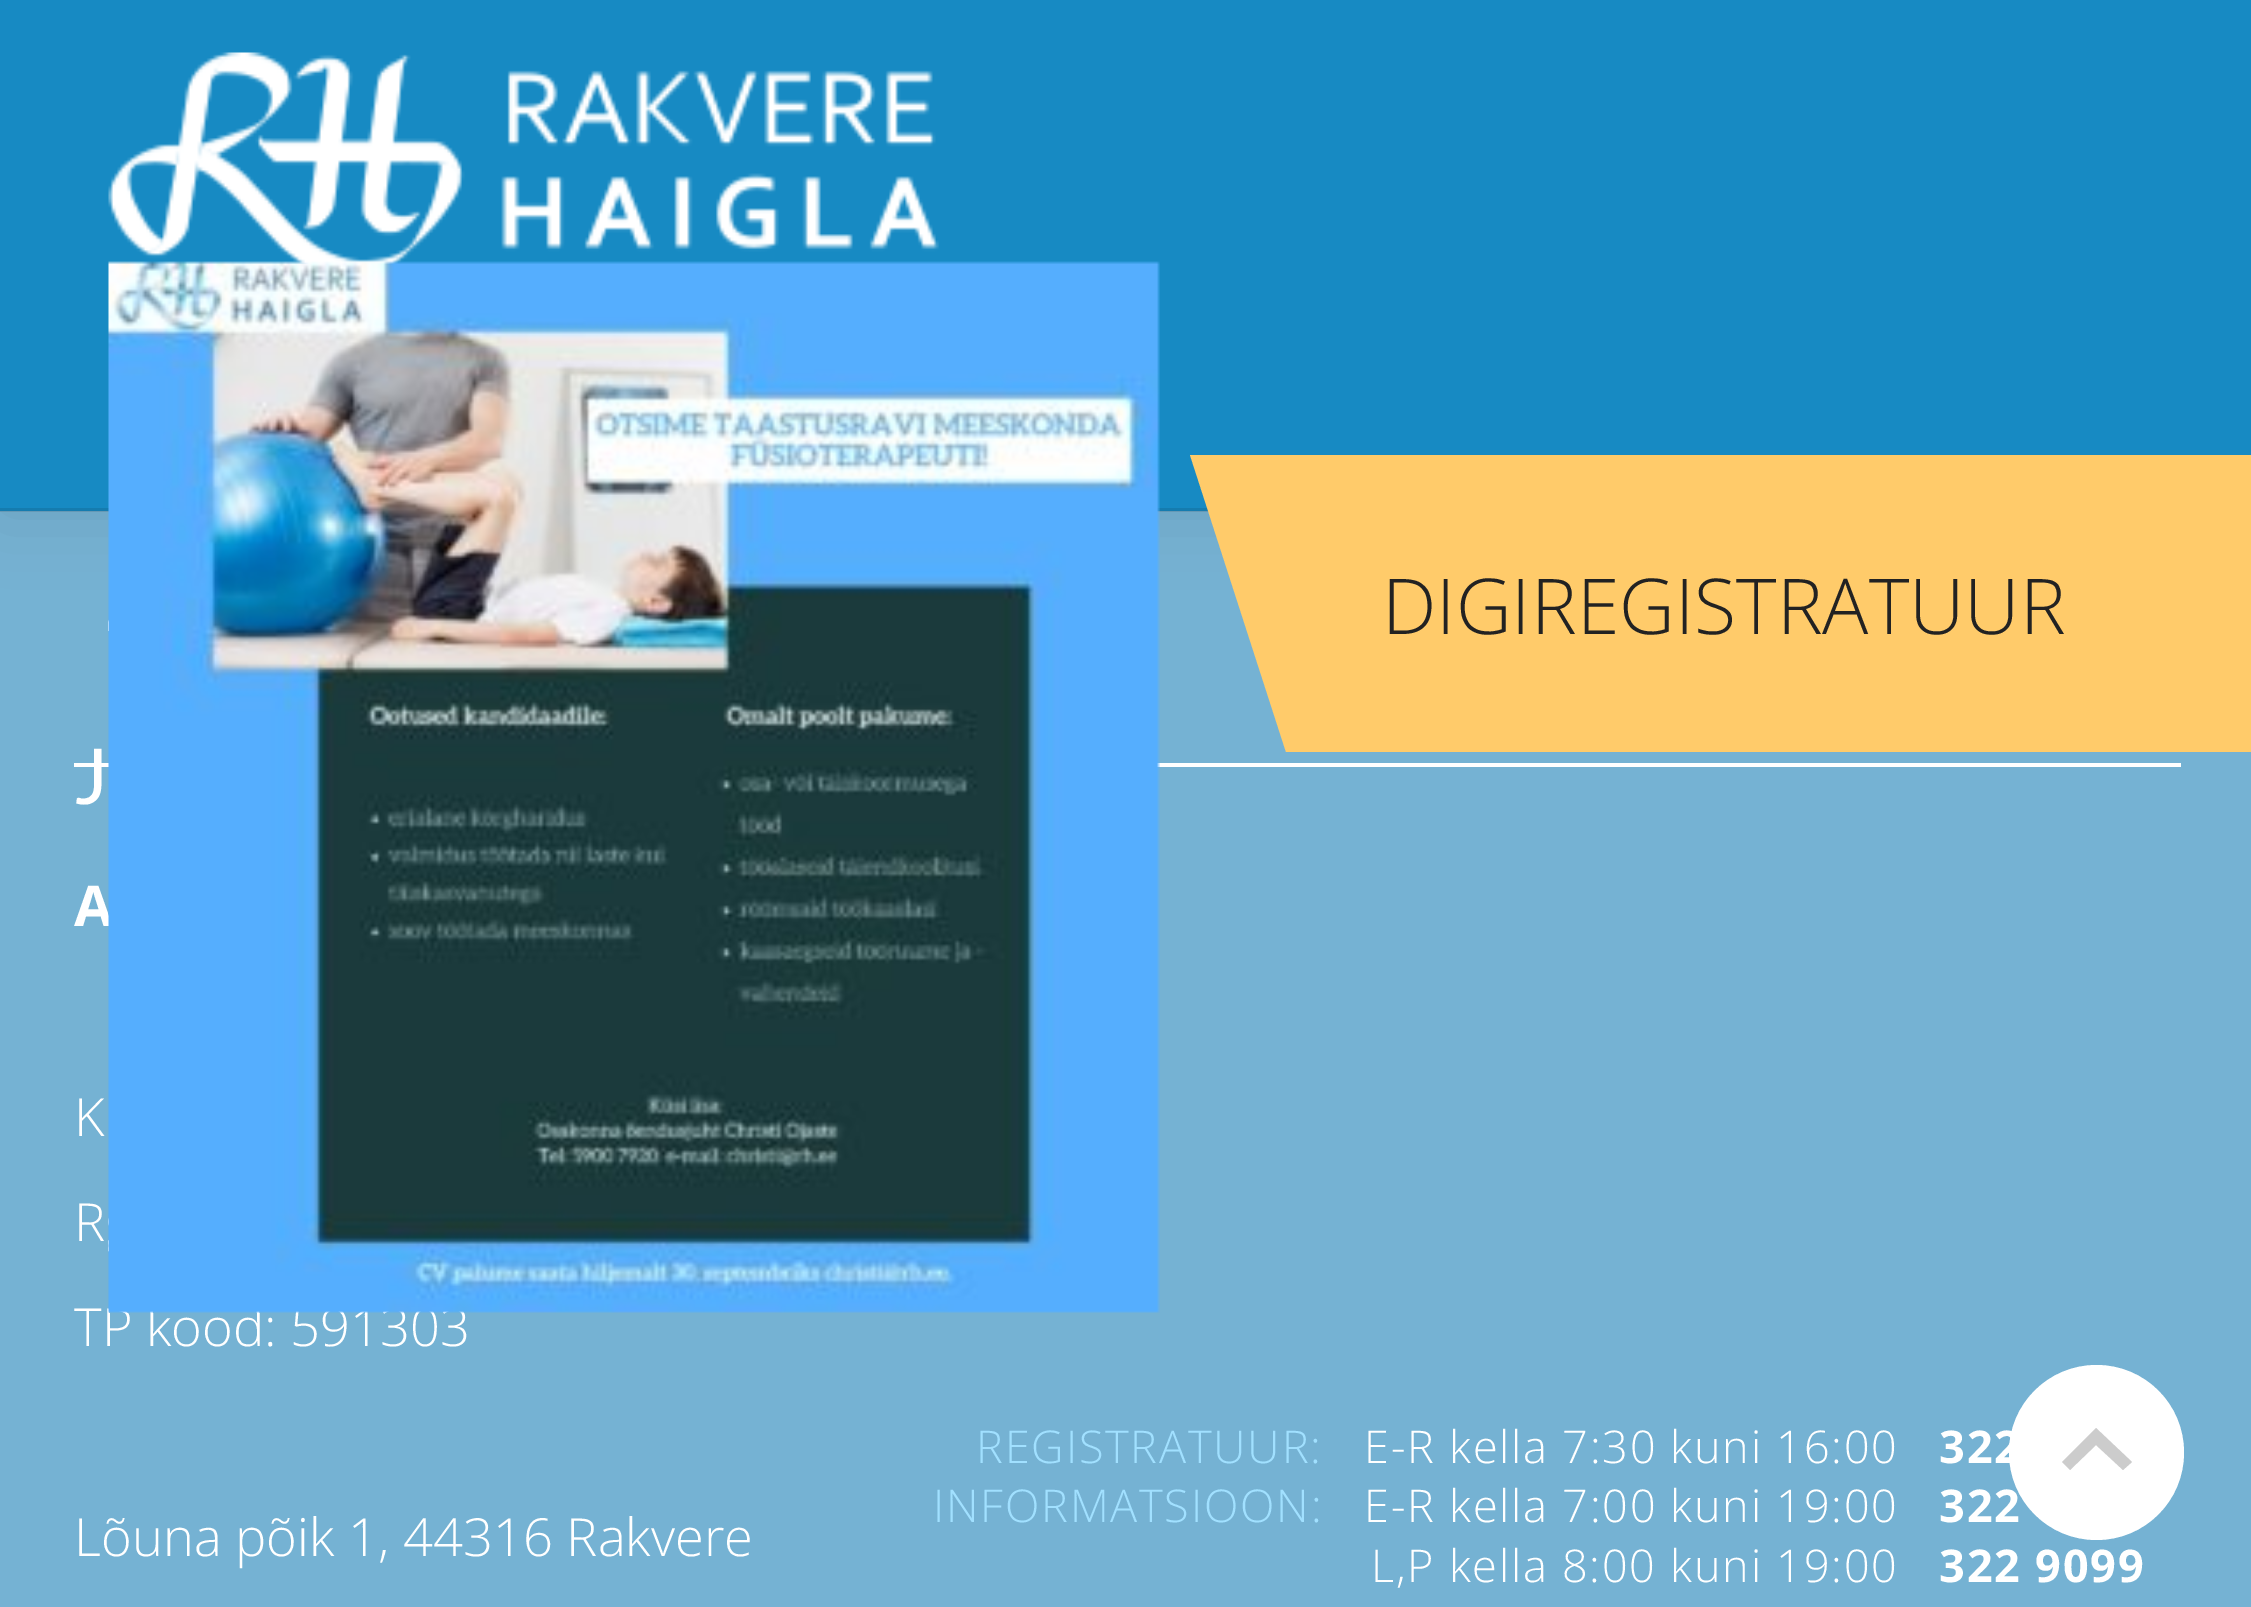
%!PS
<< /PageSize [2251 1607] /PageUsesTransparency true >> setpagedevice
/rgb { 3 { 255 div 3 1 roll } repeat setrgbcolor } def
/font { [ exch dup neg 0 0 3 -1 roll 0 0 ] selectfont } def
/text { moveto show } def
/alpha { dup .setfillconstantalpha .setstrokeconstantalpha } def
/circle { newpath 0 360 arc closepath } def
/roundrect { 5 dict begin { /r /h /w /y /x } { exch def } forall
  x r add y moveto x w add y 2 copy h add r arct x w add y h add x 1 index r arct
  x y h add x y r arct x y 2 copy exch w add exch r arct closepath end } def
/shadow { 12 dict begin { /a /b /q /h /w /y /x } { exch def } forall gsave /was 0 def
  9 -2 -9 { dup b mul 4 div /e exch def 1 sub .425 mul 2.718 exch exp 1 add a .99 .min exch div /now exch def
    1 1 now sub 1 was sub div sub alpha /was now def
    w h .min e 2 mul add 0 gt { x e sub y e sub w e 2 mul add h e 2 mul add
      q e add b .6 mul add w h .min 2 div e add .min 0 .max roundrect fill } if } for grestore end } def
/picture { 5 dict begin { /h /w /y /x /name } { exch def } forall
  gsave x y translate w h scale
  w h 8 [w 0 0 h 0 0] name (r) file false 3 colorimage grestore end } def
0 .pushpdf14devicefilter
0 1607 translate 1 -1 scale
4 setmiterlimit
117 178 211 rgb
0 0 2251 1607 rectfill
255 255 255 rgb
74 763 2107 4 rectfill
0 0 0 rgb
0 0 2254 511 0 35 0.1 shadow
23 138 195 rgb
0 0 2251 511 rectfill
0.1 alpha
0 0 0 rgb
0 508 1209 4 rectfill
1 alpha
(img_01.rgb) 108 52 831 212 picture
255 203 106 rgb
1190 455 moveto 96 297 rlineto 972 0 rlineto 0 -297 rlineto closepath fill
255 255 255 rgb
2096.5 1452.5 87.5 circle fill
204 204 204 rgb
2062 1462 moveto 34 -34 rlineto 36 34 rlineto -9 8 rlineto -27 -25 rlineto 0 0 4 -3 0 0 rcurveto -3 -3 0 0 0 0 rcurveto -26 25 rlineto closepath fill
/Lato-Regular 77 font
255 255 255 rgb
(J) 74 804 text
/OpenSans-Bold 56 font
(A) 74 926 text
/OpenSans-Light 52.5 font
(K) 74 1136 text
(R) 74 1241 text
(TP kood: 591303) 74 1346 text
(Lõuna põik 1, 44316 Rakvere) 74 1556 text
/OpenSans-Light 77 font
34 34 34 rgb
(DIGIREGISTRATUUR) 1382 634 text
(img_02.rgb) 108 261 1052 1052 picture
/OpenSans-Light 45.1 font
161 224 255 rgb
976 1463 moveto 1.75 0 (REGISTRATUUR:) ashow
255 255 255 rgb
1364 1463 moveto 1.75 0 (E-R kella 7:30 kuni 16:00) ashow
/OpenSans-Bold 45.1 font
1939 1463 moveto 1.75 0 (322) ashow
/OpenSans-Light 45.1 font
161 224 255 rgb
933 1522 moveto 1.75 0 (INFORMATSIOON:) ashow
255 255 255 rgb
1364 1522 moveto 1.75 0 (E-R kella 7:00 kuni 19:00) ashow
/OpenSans-Bold 45.1 font
1939 1522 moveto 1.75 0 (322) ashow
/OpenSans-Light 45.1 font
1371 1582 moveto 1.75 0 (L,P kella 8:00 kuni 19:00) ashow
/OpenSans-Bold 45.1 font
1939 1582 moveto 1.75 0 (322 9099) ashow
.poppdf14devicefilter showpage
